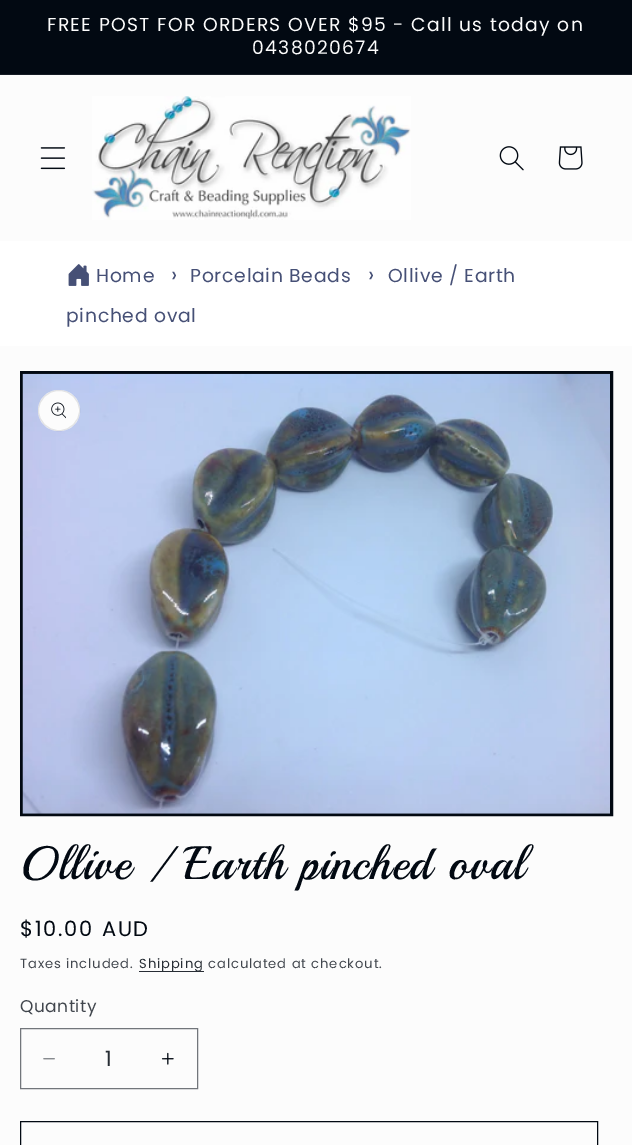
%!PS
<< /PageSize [632 1145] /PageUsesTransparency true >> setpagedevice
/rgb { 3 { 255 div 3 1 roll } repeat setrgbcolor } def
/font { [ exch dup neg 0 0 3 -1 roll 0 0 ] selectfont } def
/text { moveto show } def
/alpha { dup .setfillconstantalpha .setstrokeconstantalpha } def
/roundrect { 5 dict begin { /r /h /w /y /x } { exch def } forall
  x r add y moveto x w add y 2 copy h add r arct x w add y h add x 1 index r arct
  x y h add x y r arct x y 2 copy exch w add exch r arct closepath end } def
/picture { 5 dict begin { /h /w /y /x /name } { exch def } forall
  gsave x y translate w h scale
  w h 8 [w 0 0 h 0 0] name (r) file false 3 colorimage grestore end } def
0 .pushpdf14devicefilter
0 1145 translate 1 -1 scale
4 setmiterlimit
252 252 252 rgb
0 0 632 1145 rectfill
2 9 18 rgb
0 0 632 74 rectfill
22 28 37 rgb
0 74 632 1 rectfill
(img_01.rgb) 40 147 26 23 picture
(img_02.rgb) 92 96 319 124 picture
(img_03.rgb) 499 146 25 25 picture
(img_04.rgb) 558 146 25 24 picture
255 255 255 rgb
0 241 632 105 rectfill
(img_05.rgb) 68 264 21 22 picture
2 9 18 rgb
3 setlinewidth
21.5 372.5 590 442 rectstroke
(img_06.rgb) 22 373 588 441 picture
252 252 252 rgb
38 390 42 41 20.5 roundrect fill
0.1 alpha
2 9 18 rgb
1 setlinewidth
38.5 390.5 41 40 20 roundrect stroke
1 alpha
(img_07.rgb) 51 402 15 17 picture
40 45 53 rgb
139 971 65 1 rectfill
(img_08.rgb) 43 1058 12 2 picture
(img_09.rgb) 161 1052 13 13 picture
114 118 123 rgb
20.5 1028.5 177 60 rectstroke
2 9 18 rgb
20.5 1121.5 577 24 rectstroke
/Poppins-Regular 18.75 font
252 252 252 rgb
47 31 moveto 1.3 0 (FREE POST FOR ORDERS OVER $95 - Call us today on) ashow
252 54 moveto 1.3 0 (0438020674) ashow
70 80 118 rgb
96 282 moveto 0.75 0 (Home) ashow
/Poppins-Regular 22 font
171 282 moveto 0.75 0 (›) ashow
/Poppins-Regular 18.75 font
190 282 moveto 0.75 0 (Porcelain Beads) ashow
/Poppins-Regular 22 font
368 282 moveto 0.75 0 (›) ashow
/Poppins-Regular 18.75 font
388 282 moveto 0.75 0 (Ollive / Earth) ashow
66 322 moveto 0.75 0 (pinched oval) ashow
/Playball-Regular 46.9 font
2 9 18 rgb
20 879 moveto 0.95 0 (Ollive / Earth pinched oval) ashow
/Poppins-Regular 21 font
20 936 moveto 1.75 0 ($10.00 AUD) ashow
/Poppins-Regular 13.1 font
65 70 77 rgb
20 968 moveto 0.9 0 (Taxes included.) ashow
39 45 52 rgb
139 968 moveto 0.9 0 (Shipping) ashow
65 70 77 rgb
208 968 moveto 0.9 0 (calculated at checkout.) ashow
/Poppins-Regular 17 font
20 1012 moveto 0.5 0 (Quantity) ashow
/Poppins-Regular 21 font
39 45 52 rgb
(1) 105 1066 text
.poppdf14devicefilter showpage
